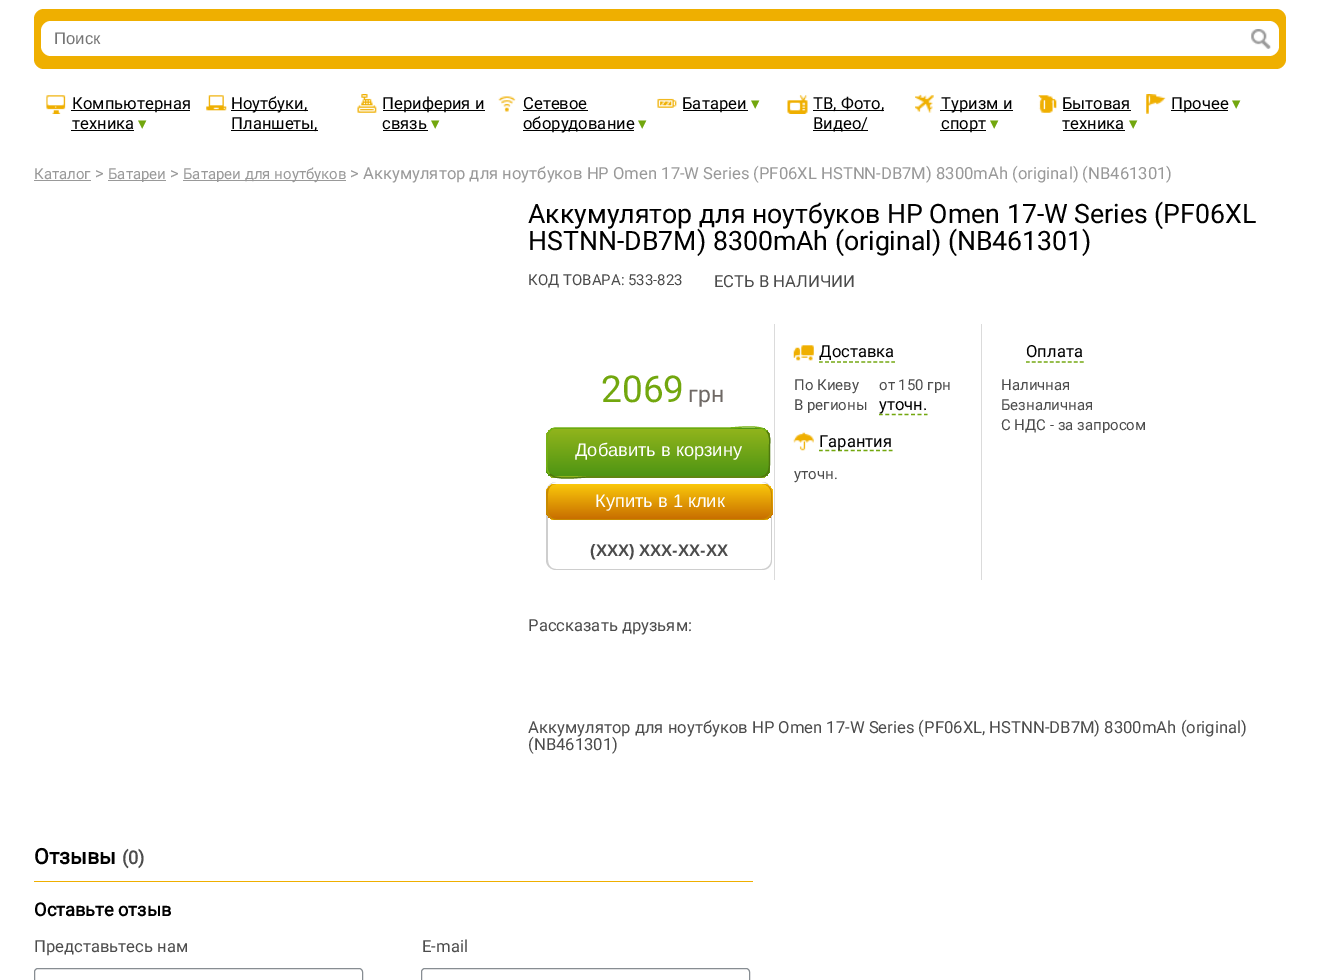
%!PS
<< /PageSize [1319 980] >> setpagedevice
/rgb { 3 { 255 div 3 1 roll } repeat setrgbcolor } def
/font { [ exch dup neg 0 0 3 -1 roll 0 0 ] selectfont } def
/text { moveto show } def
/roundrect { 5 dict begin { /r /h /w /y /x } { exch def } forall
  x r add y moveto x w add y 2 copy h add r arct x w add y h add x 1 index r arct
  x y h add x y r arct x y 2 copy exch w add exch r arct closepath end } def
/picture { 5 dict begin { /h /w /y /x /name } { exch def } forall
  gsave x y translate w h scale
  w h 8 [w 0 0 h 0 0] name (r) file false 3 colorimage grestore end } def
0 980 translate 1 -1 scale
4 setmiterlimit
255 255 255 rgb
0 0 1319 980 rectfill
239 175 0 rgb
34 9 1252 60 10 roundrect fill
255 255 255 rgb
51 21 moveto 1193 0 rlineto 0 35 rlineto -1193 0 rlineto -5.5 0 -10 -4.5 -10 -10 rcurveto 0 -15 rlineto 0 -5.5 4.5 -10 10 -10 rcurveto closepath fill
1244 21 moveto 25 0 rlineto 5.5 0 10 4.5 10 10 rcurveto 0 15 rlineto 0 5.5 -4.5 10 -10 10 rcurveto -25 0 rlineto closepath fill
(img_01.rgb) 1251 29 20 20 picture
(img_02.rgb) 46 95 20 19 picture
0 0 0 rgb
71 110 119 1 rectfill
71 130 63 1 rectfill
(img_03.rgb) 206 95 21 16 picture
231 110 77 1 rectfill
231 130 87 1 rectfill
(img_04.rgb) 357 94 20 19 picture
383 110 102 1 rectfill
383 130 45 1 rectfill
(img_05.rgb) 498 96 18 16 picture
523 110 65 1 rectfill
523 130 111 1 rectfill
(img_06.rgb) 657 98 20 10 picture
683 110 65 1 rectfill
(img_07.rgb) 787 95 21 19 picture
813 110 71 1 rectfill
813 130 55 1 rectfill
(img_08.rgb) 915 94 19 19 picture
940 110 73 1 rectfill
940 130 46 1 rectfill
(img_09.rgb) 1038 95 19 18 picture
1063 110 68 1 rectfill
1063 130 62 1 rectfill
(img_10.rgb) 1146 94 20 20 picture
1171 110 57 1 rectfill
153 153 153 rgb
34 180 57 1 rectfill
108 180 58 1 rectfill
183 180 163 1 rectfill
gsave
546 428 224 50 10 roundrect clip newpath
gsave 546 428 moveto 224 0 rlineto 0 1 rlineto -224 0 rlineto closepath clip newpath
<< /ShadingType 2 /ColorSpace /DeviceRGB /Coords [658 429 658 381] /Extend [true true] /Function << /FunctionType 2 /Domain [0 1] /C0 [0.306 0.584 0.075] /C1 [0.569 0.706 0.11] /N 1 >> >> shfill grestore
gsave 546 429 moveto 224 0 rlineto 0 47 rlineto -224 0 rlineto closepath clip newpath
<< /ShadingType 2 /ColorSpace /DeviceRGB /Coords [658 476 658 429] /Extend [true true] /Function << /FunctionType 2 /Domain [0 1] /C0 [0.306 0.584 0.075] /C1 [0.569 0.706 0.11] /N 1 >> >> shfill grestore
gsave 546 476 moveto 224 0 rlineto 0 2 rlineto -224 0 rlineto closepath clip newpath
<< /ShadingType 2 /ColorSpace /DeviceRGB /Coords [658 524 658 476] /Extend [true true] /Function << /FunctionType 2 /Domain [0 1] /C0 [0.306 0.584 0.075] /C1 [0.569 0.706 0.11] /N 1 >> >> shfill grestore
grestore
78 119 13 rgb
1.2 setlinewidth
766.5 431 moveto 4.5 4 3 11 3 16.5 rcurveto 0 15 rlineto 0 6.5 -0.5 14.5 -9.5 14.5 rcurveto -170 0 rlineto -12 0 -25 3 -36.5 -0.5 rcurveto -4 -2.5 rlineto stroke
117 178 20 rgb
549.5 474 moveto -4 -4 -2.5 -11 -2.5 -16.5 rcurveto 0 -15 rlineto 0 -6.5 0.5 -14.5 9 -14.5 rcurveto 170 0 rlineto 12.5 0 25 -3 36.5 0.5 rcurveto 4 2.5 rlineto stroke
206 206 206 rgb
556 482 moveto 206 0 rlineto 6 0 10 5 10 10 rcurveto 0 68 rlineto 0 6 -4 10 -10 10 rcurveto -206 0 rlineto -5 0 -10 -4 -10 -10 rcurveto 0 -68 rlineto 0 -5 5 -10 10 -10 rcurveto closepath 556 482 moveto 206 0 rlineto 5 0 9 5 9 10 rcurveto 0 68 rlineto 0 5 -4 9 -9 9 rcurveto -206 0 rlineto -5 0 -8 -4 -8 -9 rcurveto 0 -68 rlineto 0 -5 3 -10 8 -10 rcurveto closepath eofill
239 239 239 rgb
546 484 227 36 10 roundrect fill
gsave
546 484 227 36 10 roundrect clip newpath
gsave 556 484 moveto 207 0 rlineto 5.5 0 10 4.5 10 10 rcurveto 0 25 rlineto -227 0 rlineto 0 -25 rlineto 0 -5.5 4.5 -10 10 -10 rcurveto closepath clip newpath
<< /ShadingType 2 /ColorSpace /DeviceRGB /Coords [659 519 659 484] /Extend [true true] /Function << /FunctionType 2 /Domain [0 1] /C0 [0.784 0.431 0] /C1 [0.98 0.784 0.039] /N 1 >> >> shfill grestore
gsave 546 519 moveto 227 0 rlineto 0 1 rlineto -227 0 rlineto closepath clip newpath
<< /ShadingType 2 /ColorSpace /DeviceRGB /Coords [659 554 659 519] /Extend [true true] /Function << /FunctionType 2 /Domain [0 1] /C0 [0.784 0.431 0] /C1 [0.98 0.784 0.039] /N 1 >> >> shfill grestore
grestore
200 138 0 rgb
556 484 moveto 206 0 rlineto 6 0 10 4 10 10 rcurveto 0 16 rlineto 0 6 -4 10 -10 10 rcurveto -206 0 rlineto -5 0 -10 -4 -10 -10 rcurveto 0 -16 rlineto 0 -6 5 -10 10 -10 rcurveto closepath 556 484 moveto 206 0 rlineto 5 0 9 4 9 10 rcurveto 0 16 rlineto 0 5 -4 9 -9 9 rcurveto -206 0 rlineto -5 0 -8 -4 -8 -9 rcurveto 0 -16 rlineto 0 -6 3 -10 8 -10 rcurveto closepath eofill
219 219 219 rgb
774 324 1 256 rectfill
(img_11.rgb) 793 345 21 16 picture
114 167 14 rgb
[3.75 2.29] 0 setdash
819 362 moveto 76 0 rlineto stroke
[3.75 2.68] 0 setdash
879 414.5 moveto 48.5 0 rlineto stroke
(img_12.rgb) 793 432 21 19 picture
[3.75 2.61] 0 setdash
819 450.5 moveto 73.5 0 rlineto stroke
219 219 219 rgb
981 324 1 256 rectfill
114 167 14 rgb
[3.75 2.23] 0 setdash
1026 362 moveto 58 0 rlineto stroke
239 175 0 rgb
34 881 719 1 rectfill
135 141 146 rgb
1 setlinewidth
[] 0 setdash
34.5 968.5 328 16 3.5 roundrect stroke
421.5 968.5 328 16 3.5 roundrect stroke
/LiberationSans-Regular 16.65 font
117 117 117 rgb
(Поиск) 54 44 text
/Roboto-Regular 16.65 font
0 0 0 rgb
(Компьютерная) 72 109 text
(техника) 72 129 text
/DejaVuSans-Regular 16.65 font
114 167 14 rgb
(▾) 138 129 text
/Roboto-Regular 16.65 font
0 0 0 rgb
(Ноутбуки,) 231 109 text
(Планшеты,) 231 129 text
(Периферия и) 382 109 text
(связь) 382 129 text
/DejaVuSans-Regular 16.65 font
114 167 14 rgb
(▾) 431 129 text
/Roboto-Regular 16.65 font
0 0 0 rgb
(Сетевое) 523 109 text
(оборудование) 523 129 text
/DejaVuSans-Regular 16.65 font
114 167 14 rgb
(▾) 638 129 text
/Roboto-Regular 16.65 font
0 0 0 rgb
(Батареи) 682 109 text
/DejaVuSans-Regular 16.65 font
114 167 14 rgb
(▾) 751 109 text
/Roboto-Regular 16.65 font
0 0 0 rgb
(ТВ, Фото,) 813 109 text
(Видео/) 813 129 text
(Туризм и) 941 109 text
(спорт) 941 129 text
/DejaVuSans-Regular 16.65 font
114 167 14 rgb
(▾) 990 129 text
/Roboto-Regular 16.65 font
0 0 0 rgb
(Бытовая) 1062 109 text
(техника) 1062 129 text
/DejaVuSans-Regular 16.65 font
114 167 14 rgb
(▾) 1129 129 text
/Roboto-Regular 16.65 font
0 0 0 rgb
(Прочее) 1171 109 text
/DejaVuSans-Regular 16.65 font
114 167 14 rgb
(▾) 1232 109 text
/Roboto-Regular 15 font
153 153 153 rgb
(Каталог) 34 179 text
/Roboto-Regular 16.65 font
(>) 95 179 text
/Roboto-Regular 15 font
(Батареи) 108 179 text
/Roboto-Regular 16.65 font
(>) 170 179 text
/Roboto-Regular 15 font
(Батареи для ноутбуков) 183 179 text
/Roboto-Regular 16.65 font
(> Аккумулятор для ноутбуков HP Omen 17-W Series \(PF06XL HSTNN-DB7M\) 8300mAh \(original\) \(NB461301\)) 350 179 text
/Roboto-Regular 26.7 font
0 0 0 rgb
(Аккумулятор для ноутбуков HP Omen 17-W Series \(PF06XL) 528 223 text
(HSTNN-DB7M\) 8300mAh \(original\) \(NB461301\)) 528 250 text
/Roboto-Regular 15 font
76 76 76 rgb
(КОД ТОВАРА: 533-823) 528 285 text
/Roboto-Regular 16.65 font
(ЕСТЬ В НАЛИЧИИ) 714 287 text
/Roboto-Regular 37 font
114 167 14 rgb
(2069) 601 402 text
/Roboto-Regular 23 font
111 105 101 rgb
(грн) 688 402 text
/LiberationSans-Regular 18.25 font
255 255 255 rgb
(Добавить в корзину) 575 456 text
(Купить в 1 клик) 595 507 text
/LiberationSans-Bold 16.65 font
76 76 76 rgb
(\(XXX\) XXX-XX-XX) 590 556 text
/Roboto-Regular 16.65 font
0 0 0 rgb
(Доставка) 819 357 text
/Roboto-Regular 15 font
76 76 76 rgb
(По Киеву) 794 390 text
(от 150 грн) 879 390 text
(В регионы) 794 410 text
/Roboto-Regular 16.65 font
0 0 0 rgb
(уточн.) 879 410 text
(Гарантия) 819 447 text
/Roboto-Regular 15 font
76 76 76 rgb
(уточн.) 794 479 text
/Roboto-Regular 16.65 font
0 0 0 rgb
(Оплата) 1026 357 text
/Roboto-Regular 15 font
76 76 76 rgb
(Наличная) 1001 390 text
(Безналичная) 1001 410 text
(С НДС - за запросом) 1001 430 text
/Roboto-Regular 16.65 font
(Рассказать друзьям:) 528 631 text
(Аккумулятор для ноутбуков HP Omen 17-W Series \(PF06XL, HSTNN-DB7M\) 8300mAh \(original\)) 528 733 text
(\(NB461301\)) 528 750 text
/Roboto-Bold 21.5 font
0 0 0 rgb
(Отзывы) 34 864 text
/Roboto-Bold 18.25 font
76 76 76 rgb
(\(0\)) 122 864 text
0 0 0 rgb
(Оставьте отзыв) 34 916 text
/Roboto-Regular 16.65 font
76 76 76 rgb
(Представьтесь нам) 34 952 text
(E-mail) 422 952 text
showpage
